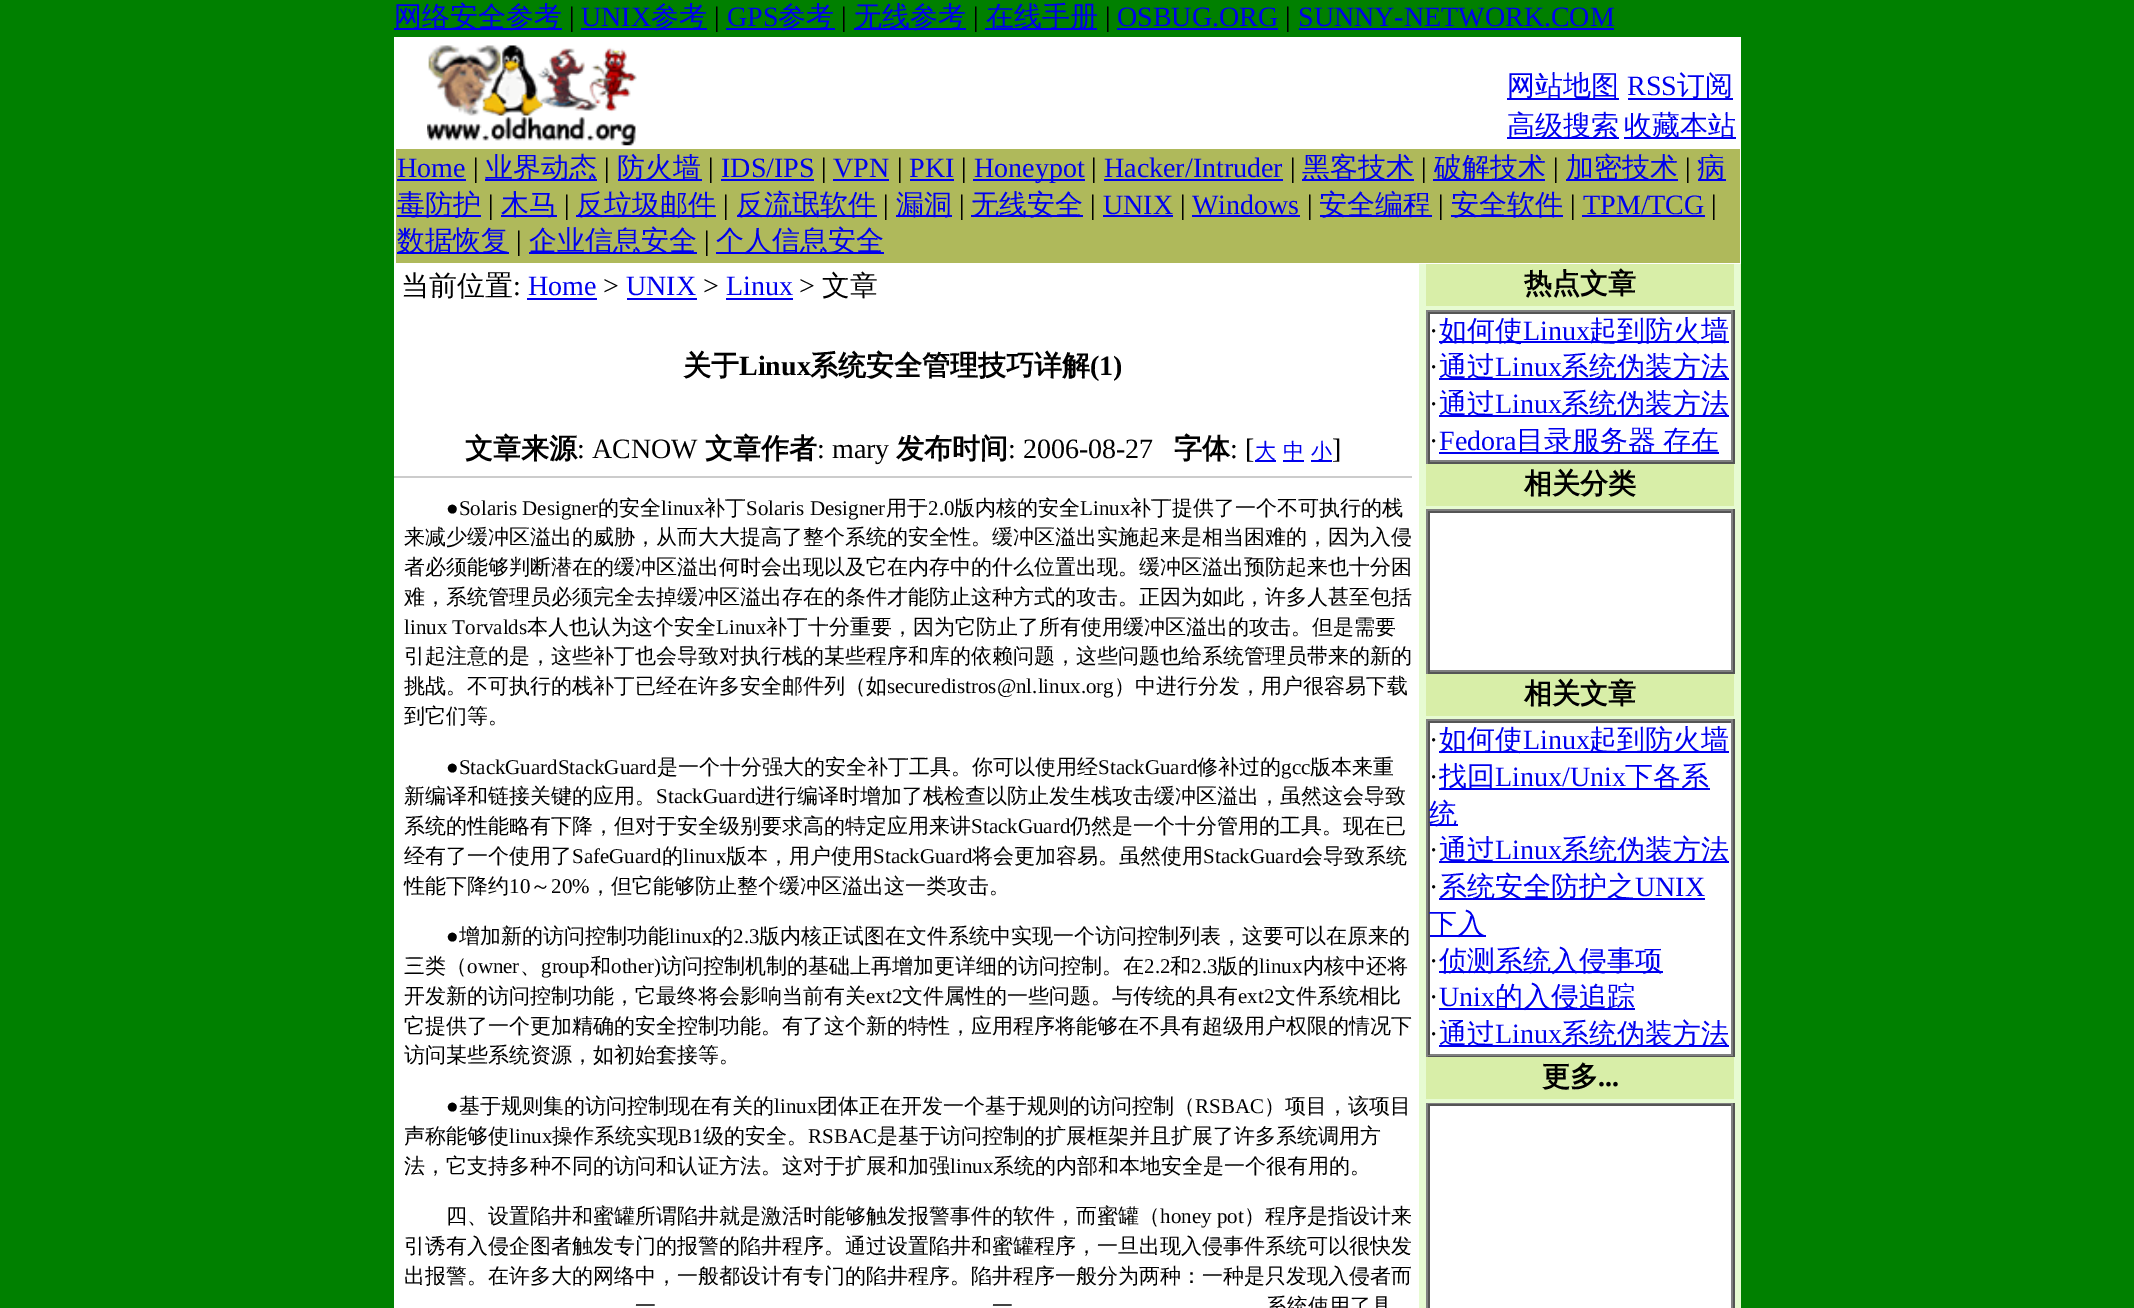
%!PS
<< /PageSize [2134 1308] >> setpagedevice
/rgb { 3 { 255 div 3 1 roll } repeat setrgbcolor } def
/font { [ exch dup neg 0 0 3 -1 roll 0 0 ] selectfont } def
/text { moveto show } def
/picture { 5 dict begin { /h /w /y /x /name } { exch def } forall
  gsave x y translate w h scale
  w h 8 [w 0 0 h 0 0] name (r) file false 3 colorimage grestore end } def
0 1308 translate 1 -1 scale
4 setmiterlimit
0 128 0 rgb
0 0 2134 1308 rectfill
0 0 238 rgb
394 28 168 2 rectfill
581 28 126 2 rectfill
726 28 109 2 rectfill
854 28 112 2 rectfill
985 28 112 2 rectfill
1117 28 161 2 rectfill
1299 28 315 2 rectfill
255 255 255 rgb
394 37 1347 227 rectfill
(img_01.rgb) 427 45 210 101 picture
0 0 238 rgb
1507 98 112 2 rectfill
1628 98 105 2 rectfill
1507 137 112 2 rectfill
1624 137 112 2 rectfill
175 185 91 rgb
396 149 1344 114 rectfill
0 0 238 rgb
397 179 69 2 rectfill
485 179 112 2 rectfill
618 179 84 2 rectfill
721 179 93 2 rectfill
833 179 56 2 rectfill
910 179 44 2 rectfill
973 179 112 2 rectfill
1104 179 179 2 rectfill
1302 179 112 2 rectfill
1433 179 112 2 rectfill
1566 179 112 2 rectfill
1698 179 28 2 rectfill
397 215 84 2 rectfill
501 215 56 2 rectfill
576 215 140 2 rectfill
737 215 140 2 rectfill
896 215 56 2 rectfill
971 215 112 2 rectfill
1103 215 70 2 rectfill
1192 215 108 2 rectfill
1320 215 112 2 rectfill
1451 215 112 2 rectfill
1582 215 123 2 rectfill
397 252 112 2 rectfill
529 252 168 2 rectfill
716 252 168 2 rectfill
255 255 255 rgb
394 264 1025 1044 rectfill
0 0 238 rgb
527 298 70 2 rectfill
627 298 70 2 rectfill
726 298 67 2 rectfill
204 204 204 rgb
394 476 1018 2 rectfill
0 0 238 rgb
1255 460 21 2 rectfill
1283 460 21 2 rectfill
1311 460 21 2 rectfill
231 251 210 rgb
1419 264 322 1044 rectfill
216 238 168 rgb
1426 264 308 42 rectfill
128 128 128 rgb
1426 310 308 2 rectfill
85 85 85 rgb
1733 310 2 154 rectfill
1426 462 308 2 rectfill
128 128 128 rgb
1426 310 2 154 rectfill
255 255 255 rgb
1430 314 301 146 rectfill
85 85 85 rgb
1428 312 305 2 rectfill
128 128 128 rgb
1731 312 2 150 rectfill
1428 460 305 2 rectfill
85 85 85 rgb
1428 312 2 150 rectfill
0 0 238 rgb
1439 341 290 2 rectfill
1439 378 290 2 rectfill
1439 415 290 2 rectfill
1439 452 280 2 rectfill
216 238 168 rgb
1426 464 308 42 rectfill
128 128 128 rgb
1426 509 308 2 rectfill
85 85 85 rgb
1733 509 2 165 rectfill
1426 672 308 2 rectfill
128 128 128 rgb
1426 509 2 165 rectfill
255 255 255 rgb
1430 513 301 157 rectfill
85 85 85 rgb
1428 511 305 2 rectfill
128 128 128 rgb
1731 511 2 161 rectfill
1428 670 305 2 rectfill
85 85 85 rgb
1428 511 2 161 rectfill
216 238 168 rgb
1426 674 308 42 rectfill
128 128 128 rgb
1426 719 308 2 rectfill
85 85 85 rgb
1733 719 2 338 rectfill
1426 1055 308 2 rectfill
128 128 128 rgb
1426 719 2 338 rectfill
255 255 255 rgb
1430 723 301 331 rectfill
85 85 85 rgb
1428 721 305 2 rectfill
128 128 128 rgb
1731 721 2 334 rectfill
1428 1054 305 2 rectfill
85 85 85 rgb
1428 721 2 334 rectfill
0 0 238 rgb
1439 751 290 2 rectfill
1439 788 271 2 rectfill
1430 824 28 2 rectfill
1439 861 290 2 rectfill
1439 898 266 2 rectfill
1430 935 56 2 rectfill
1439 971 224 2 rectfill
1439 1008 196 2 rectfill
1439 1045 290 2 rectfill
216 238 168 rgb
1426 1057 308 42 rectfill
128 128 128 rgb
1426 1103 308 1 rectfill
85 85 85 rgb
1733 1103 2 205 rectfill
128 128 128 rgb
1426 1103 2 205 rectfill
255 255 255 rgb
1430 1106 301 202 rectfill
85 85 85 rgb
1428 1104 305 2 rectfill
128 128 128 rgb
1731 1104 2 204 rectfill
85 85 85 rgb
1428 1104 2 204 rectfill
/WenQuanYiZenHei-Medium 28 font
0 0 238 rgb
(网络安全参考) 394 26 text
/LiberationSerif-Regular 28 font
0 0 0 rgb
(|) 569 26 text
0 0 238 rgb
(UNIX) 581 26 text
/WenQuanYiZenHei-Medium 28 font
(参考) 651 26 text
/LiberationSerif-Regular 28 font
0 0 0 rgb
(|) 714 26 text
0 0 238 rgb
(GPS) 727 26 text
/WenQuanYiZenHei-Medium 28 font
(参考) 778 26 text
/LiberationSerif-Regular 28 font
0 0 0 rgb
(|) 841 26 text
/WenQuanYiZenHei-Medium 28 font
0 0 238 rgb
(无线参考) 854 26 text
/LiberationSerif-Regular 28 font
0 0 0 rgb
(|) 973 26 text
/WenQuanYiZenHei-Medium 28 font
0 0 238 rgb
(在线手册) 986 26 text
/LiberationSerif-Regular 28 font
0 0 0 rgb
(|) 1105 26 text
0 0 238 rgb
(OSBUG.ORG) 1117 26 text
0 0 0 rgb
(|) 1285 26 text
0 0 238 rgb
(SUNNY-NETWORK.COM) 1298 26 text
/WenQuanYiZenHei-Medium 28 font
(网站地图) 1507 95 text
/LiberationSerif-Regular 28 font
(RSS) 1627 95 text
/WenQuanYiZenHei-Medium 28 font
(订阅) 1677 95 text
(高级搜索) 1507 135 text
(收藏本站) 1624 135 text
/LiberationSerif-Regular 28 font
(Home) 397 177 text
0 0 0 rgb
(|) 473 177 text
/WenQuanYiZenHei-Medium 28 font
0 0 238 rgb
(业界动态) 485 177 text
/LiberationSerif-Regular 28 font
0 0 0 rgb
(|) 604 177 text
/WenQuanYiZenHei-Medium 28 font
0 0 238 rgb
(防火墙) 617 177 text
/LiberationSerif-Regular 28 font
0 0 0 rgb
(|) 708 177 text
0 0 238 rgb
(IDS/IPS) 721 177 text
0 0 0 rgb
(|) 821 177 text
0 0 238 rgb
(VPN) 833 177 text
0 0 0 rgb
(|) 897 177 text
0 0 238 rgb
(PKI) 909 177 text
0 0 0 rgb
(|) 961 177 text
0 0 238 rgb
(Honeypot) 974 177 text
0 0 0 rgb
(|) 1091 177 text
0 0 238 rgb
(Hacker/Intruder) 1104 177 text
0 0 0 rgb
(|) 1290 177 text
/WenQuanYiZenHei-Medium 28 font
0 0 238 rgb
(黑客技术) 1302 177 text
/LiberationSerif-Regular 28 font
0 0 0 rgb
(|) 1421 177 text
/WenQuanYiZenHei-Medium 28 font
0 0 238 rgb
(破解技术) 1434 177 text
/LiberationSerif-Regular 28 font
0 0 0 rgb
(|) 1553 177 text
/WenQuanYiZenHei-Medium 28 font
0 0 238 rgb
(加密技术) 1566 177 text
/LiberationSerif-Regular 28 font
0 0 0 rgb
(|) 1685 177 text
/WenQuanYiZenHei-Medium 28 font
0 0 238 rgb
(病) 1697 177 text
(毒防护) 397 214 text
/LiberationSerif-Regular 28 font
0 0 0 rgb
(|) 488 214 text
/WenQuanYiZenHei-Medium 28 font
0 0 238 rgb
(木马) 501 214 text
/LiberationSerif-Regular 28 font
0 0 0 rgb
(|) 564 214 text
/WenQuanYiZenHei-Medium 28 font
0 0 238 rgb
(反垃圾邮件) 576 214 text
/LiberationSerif-Regular 28 font
0 0 0 rgb
(|) 723 214 text
/WenQuanYiZenHei-Medium 28 font
0 0 238 rgb
(反流氓软件) 736 214 text
/LiberationSerif-Regular 28 font
0 0 0 rgb
(|) 883 214 text
/WenQuanYiZenHei-Medium 28 font
0 0 238 rgb
(漏洞) 896 214 text
/LiberationSerif-Regular 28 font
0 0 0 rgb
(|) 959 214 text
/WenQuanYiZenHei-Medium 28 font
0 0 238 rgb
(无线安全) 971 214 text
/LiberationSerif-Regular 28 font
0 0 0 rgb
(|) 1090 214 text
0 0 238 rgb
(UNIX) 1103 214 text
0 0 0 rgb
(|) 1180 214 text
0 0 238 rgb
(Windows) 1192 214 text
0 0 0 rgb
(|) 1307 214 text
/WenQuanYiZenHei-Medium 28 font
0 0 238 rgb
(安全编程) 1319 214 text
/LiberationSerif-Regular 28 font
0 0 0 rgb
(|) 1438 214 text
/WenQuanYiZenHei-Medium 28 font
0 0 238 rgb
(安全软件) 1451 214 text
/LiberationSerif-Regular 28 font
0 0 0 rgb
(|) 1570 214 text
0 0 238 rgb
(TPM/TCG) 1583 214 text
0 0 0 rgb
(|) 1711 214 text
/WenQuanYiZenHei-Medium 28 font
0 0 238 rgb
(数据恢复) 397 250 text
/LiberationSerif-Regular 28 font
0 0 0 rgb
(|) 516 250 text
/WenQuanYiZenHei-Medium 28 font
0 0 238 rgb
(企业信息安全) 529 250 text
/LiberationSerif-Regular 28 font
0 0 0 rgb
(|) 704 250 text
/WenQuanYiZenHei-Medium 28 font
0 0 238 rgb
(个人信息安全) 716 250 text
0 0 0 rgb
(当前位置) 401 295 text
/LiberationSerif-Regular 28 font
(:) 513 295 text
0 0 238 rgb
(Home) 528 295 text
0 0 0 rgb
(>) 603 295 text
0 0 238 rgb
(UNIX) 626 295 text
0 0 0 rgb
(>) 703 295 text
0 0 238 rgb
(Linux) 726 295 text
0 0 0 rgb
(>) 799 295 text
/WenQuanYiZenHei-Medium 28 font
(文章) 822 295 text
/WenQuanYiZenHei-Bold 28 font
(关于) 683 375 text
/LiberationSerif-Bold 28 font
(Linux) 739 375 text
/WenQuanYiZenHei-Bold 28 font
(系统安全管理技巧详解) 810 375 text
/LiberationSerif-Bold 28 font
(\(1\)) 1090 375 text
/WenQuanYiZenHei-Bold 28 font
(文章来源) 465 458 text
/LiberationSerif-Regular 28 font
(: ACNOW) 577 458 text
/WenQuanYiZenHei-Bold 28 font
(文章作者) 705 458 text
/LiberationSerif-Regular 28 font
(: mary) 817 458 text
/WenQuanYiZenHei-Bold 28 font
(发布时间) 896 458 text
/LiberationSerif-Regular 28 font
(: 2006-08-27) 1008 458 text
/WenQuanYiZenHei-Bold 28 font
(字体) 1174 458 text
/LiberationSerif-Regular 28 font
(: [) 1230 458 text
/WenQuanYiZenHei-Medium 21 font
0 0 238 rgb
(大) 1255 458 text
(中) 1283 458 text
(小) 1311 458 text
/LiberationSerif-Regular 28 font
0 0 0 rgb
(]) 1332 458 text
/LiberationSerif-Regular 21 font
(●Solaris Designer) 446 515 text
/WenQuanYiZenHei-Medium 21 font
(的安全) 598 515 text
/LiberationSerif-Regular 21 font
(linux) 661 515 text
/WenQuanYiZenHei-Medium 21 font
(补丁) 704 515 text
/LiberationSerif-Regular 21 font
(Solaris Designer) 746 515 text
/WenQuanYiZenHei-Medium 21 font
(用于) 886 515 text
/LiberationSerif-Regular 21 font
(2.0) 928 515 text
/WenQuanYiZenHei-Medium 21 font
(版内核的安全) 954 515 text
/LiberationSerif-Regular 21 font
(Linux) 1080 515 text
/WenQuanYiZenHei-Medium 21 font
(补丁提供了一个不可执行的栈) 1130 515 text
(来减少缓冲区溢出的威胁，从而大大提高了整个系统的安全性。缓冲区溢出实施起来是相当困难的，因为入侵) 404 544 text
(者必须能够判断潜在的缓冲区溢出何时会出现以及它在内存中的什么位置出现。缓冲区溢出预防起来也十分困) 404 574 text
(难，系统管理员必须完全去掉缓冲区溢出存在的条件才能防止这种方式的攻击。正因为如此，许多人甚至包括) 404 604 text
/LiberationSerif-Regular 21 font
(linux Torvalds) 404 634 text
/WenQuanYiZenHei-Medium 21 font
(本人也认为这个安全) 527 634 text
/LiberationSerif-Regular 21 font
(Linux) 716 634 text
/WenQuanYiZenHei-Medium 21 font
(补丁十分重要，因为它防止了所有使用缓冲区溢出的攻击。但是需要) 766 634 text
(引起注意的是，这些补丁也会导致对执行栈的某些程序和库的依赖问题，这些问题也给系统管理员带来的新的) 404 663 text
(挑战。不可执行的栈补丁已经在许多安全邮件列（如) 404 693 text
/LiberationSerif-Regular 21 font
(securedistros@nl.linux.org) 887 693 text
/WenQuanYiZenHei-Medium 21 font
(）中进行分发，用户很容易下载) 1114 693 text
(到它们等。) 404 723 text
/LiberationSerif-Regular 21 font
(●StackGuardStackGuard) 446 774 text
/WenQuanYiZenHei-Medium 21 font
(是一个十分强大的安全补丁工具。你可以使用经) 657 774 text
/LiberationSerif-Regular 21 font
(StackGuard) 1098 774 text
/WenQuanYiZenHei-Medium 21 font
(修补过的) 1197 774 text
/LiberationSerif-Regular 21 font
(gcc) 1281 774 text
/WenQuanYiZenHei-Medium 21 font
(版本来重) 1310 774 text
(新编译和链接关键的应用。) 404 803 text
/LiberationSerif-Regular 21 font
(StackGuard) 656 803 text
/WenQuanYiZenHei-Medium 21 font
(进行编译时增加了栈检查以防止发生栈攻击缓冲区溢出，虽然这会导致) 755 803 text
(系统的性能略有下降，但对于安全级别要求高的特定应用来讲) 404 833 text
/LiberationSerif-Regular 21 font
(StackGuard) 971 833 text
/WenQuanYiZenHei-Medium 21 font
(仍然是一个十分管用的工具。现在已) 1070 833 text
(经有了一个使用了) 404 863 text
/LiberationSerif-Regular 21 font
(SafeGuard) 572 863 text
/WenQuanYiZenHei-Medium 21 font
(的) 662 863 text
/LiberationSerif-Regular 21 font
(linux) 683 863 text
/WenQuanYiZenHei-Medium 21 font
(版本，用户使用) 726 863 text
/LiberationSerif-Regular 21 font
(StackGuard) 873 863 text
/WenQuanYiZenHei-Medium 21 font
(将会更加容易。虽然使用) 972 863 text
/LiberationSerif-Regular 21 font
(StackGuard) 1203 863 text
/WenQuanYiZenHei-Medium 21 font
(会导致系统) 1302 863 text
(性能下降约) 404 893 text
/LiberationSerif-Regular 21 font
(10) 509 893 text
/WenQuanYiZenHei-Medium 21 font
(～) 530 893 text
/LiberationSerif-Regular 21 font
(20%) 551 893 text
/WenQuanYiZenHei-Medium 21 font
(，但它能够防止整个缓冲区溢出这一类攻击。) 590 893 text
/LiberationSerif-Regular 21 font
(●) 446 943 text
/WenQuanYiZenHei-Medium 21 font
(增加新的访问控制功能) 459 943 text
/LiberationSerif-Regular 21 font
(linux) 669 943 text
/WenQuanYiZenHei-Medium 21 font
(的) 712 943 text
/LiberationSerif-Regular 21 font
(2.3) 733 943 text
/WenQuanYiZenHei-Medium 21 font
(版内核正试图在文件系统中实现一个访问控制列表，这要可以在原来的) 759 943 text
(三类（) 404 973 text
/LiberationSerif-Regular 21 font
(owner) 467 973 text
/WenQuanYiZenHei-Medium 21 font
(、) 520 973 text
/LiberationSerif-Regular 21 font
(group) 541 973 text
/WenQuanYiZenHei-Medium 21 font
(和) 590 973 text
/LiberationSerif-Regular 21 font
(other\)) 611 973 text
/WenQuanYiZenHei-Medium 21 font
(访问控制机制的基础上再增加更详细的访问控制。在) 661 973 text
/LiberationSerif-Regular 21 font
(2.2) 1144 973 text
/WenQuanYiZenHei-Medium 21 font
(和) 1170 973 text
/LiberationSerif-Regular 21 font
(2.3) 1191 973 text
/WenQuanYiZenHei-Medium 21 font
(版的) 1217 973 text
/LiberationSerif-Regular 21 font
(linux) 1259 973 text
/WenQuanYiZenHei-Medium 21 font
(内核中还将) 1303 973 text
(开发新的访问控制功能，它最终将会影响当前有关) 404 1003 text
/LiberationSerif-Regular 21 font
(ext2) 866 1003 text
/WenQuanYiZenHei-Medium 21 font
(文件属性的一些问题。与传统的具有) 902 1003 text
/LiberationSerif-Regular 21 font
(ext2) 1238 1003 text
/WenQuanYiZenHei-Medium 21 font
(文件系统相比) 1275 1003 text
(它提供了一个更加精确的安全控制功能。有了这个新的特性，应用程序将能够在不具有超级用户权限的情况下) 404 1033 text
(访问某些系统资源，如初始套接等。) 404 1062 text
/LiberationSerif-Regular 21 font
(●) 446 1113 text
/WenQuanYiZenHei-Medium 21 font
(基于规则集的访问控制现在有关的) 459 1113 text
/LiberationSerif-Regular 21 font
(linux) 774 1113 text
/WenQuanYiZenHei-Medium 21 font
(团体正在开发一个基于规则的访问控制（) 817 1113 text
/LiberationSerif-Regular 21 font
(RSBAC) 1195 1113 text
/WenQuanYiZenHei-Medium 21 font
(）项目，该项目) 1264 1113 text
(声称能够使) 404 1143 text
/LiberationSerif-Regular 21 font
(linux) 509 1143 text
/WenQuanYiZenHei-Medium 21 font
(操作系统实现) 552 1143 text
/LiberationSerif-Regular 21 font
(B1) 678 1143 text
/WenQuanYiZenHei-Medium 21 font
(级的安全。) 703 1143 text
/LiberationSerif-Regular 21 font
(RSBAC) 808 1143 text
/WenQuanYiZenHei-Medium 21 font
(是基于访问控制的扩展框架并且扩展了许多系统调用方) 877 1143 text
(法，它支持多种不同的访问和认证方法。这对于扩展和加强) 404 1173 text
/LiberationSerif-Regular 21 font
(linux) 950 1173 text
/WenQuanYiZenHei-Medium 21 font
(系统的内部和本地安全是一个很有用的。) 993 1173 text
(四、设置陷井和蜜罐所谓陷井就是激活时能够触发报警事件的软件，而蜜罐（) 446 1223 text
/LiberationSerif-Regular 21 font
(honey pot) 1160 1223 text
/WenQuanYiZenHei-Medium 21 font
(）程序是指设计来) 1244 1223 text
(引诱有入侵企图者触发专门的报警的陷井程序。通过设置陷井和蜜罐程序，一旦出现入侵事件系统可以很快发) 404 1253 text
(出报警。在许多大的网络中，一般都设计有专门的陷井程序。陷井程序一般分为两种：一种是只发现入侵者而) 404 1283 text
(一) 635 1313 text
(一) 992 1313 text
(系统使用了具) 1266 1313 text
/WenQuanYiZenHei-Bold 28 font
(热点文章) 1524 293 text
/LiberationSerif-Regular 28 font
(·) 1429 340 text
/WenQuanYiZenHei-Medium 28 font
0 0 238 rgb
(如何使) 1439 340 text
/LiberationSerif-Regular 28 font
(Linux) 1523 340 text
/WenQuanYiZenHei-Medium 28 font
(起到防火墙) 1589 340 text
/LiberationSerif-Regular 28 font
0 0 0 rgb
(·) 1429 376 text
/WenQuanYiZenHei-Medium 28 font
0 0 238 rgb
(通过) 1439 376 text
/LiberationSerif-Regular 28 font
(Linux) 1495 376 text
/WenQuanYiZenHei-Medium 28 font
(系统伪装方法) 1561 376 text
/LiberationSerif-Regular 28 font
0 0 0 rgb
(·) 1429 413 text
/WenQuanYiZenHei-Medium 28 font
0 0 238 rgb
(通过) 1439 413 text
/LiberationSerif-Regular 28 font
(Linux) 1495 413 text
/WenQuanYiZenHei-Medium 28 font
(系统伪装方法) 1561 413 text
/LiberationSerif-Regular 28 font
0 0 0 rgb
(·) 1429 450 text
0 0 238 rgb
(Fedora) 1439 450 text
/WenQuanYiZenHei-Medium 28 font
1516 450 moveto -1 0 32 (目录服务器 存在) widthshow
/WenQuanYiZenHei-Bold 28 font
0 0 0 rgb
(相关分类) 1524 493 text
(相关文章) 1524 703 text
/LiberationSerif-Regular 28 font
(·) 1429 749 text
/WenQuanYiZenHei-Medium 28 font
0 0 238 rgb
(如何使) 1439 749 text
/LiberationSerif-Regular 28 font
(Linux) 1523 749 text
/WenQuanYiZenHei-Medium 28 font
(起到防火墙) 1589 749 text
/LiberationSerif-Regular 28 font
0 0 0 rgb
(·) 1429 786 text
/WenQuanYiZenHei-Medium 28 font
0 0 238 rgb
(找回) 1439 786 text
/LiberationSerif-Regular 28 font
(Linux/Unix) 1495 786 text
/WenQuanYiZenHei-Medium 28 font
(下各系) 1625 786 text
(统) 1429 823 text
/LiberationSerif-Regular 28 font
0 0 0 rgb
(·) 1429 859 text
/WenQuanYiZenHei-Medium 28 font
0 0 238 rgb
(通过) 1439 859 text
/LiberationSerif-Regular 28 font
(Linux) 1495 859 text
/WenQuanYiZenHei-Medium 28 font
(系统伪装方法) 1561 859 text
/LiberationSerif-Regular 28 font
0 0 0 rgb
(·) 1429 896 text
/WenQuanYiZenHei-Medium 28 font
0 0 238 rgb
(系统安全防护之) 1439 896 text
/LiberationSerif-Regular 28 font
(UNIX) 1635 896 text
/WenQuanYiZenHei-Medium 28 font
(下入) 1429 933 text
/LiberationSerif-Regular 28 font
0 0 0 rgb
(·) 1429 970 text
/WenQuanYiZenHei-Medium 28 font
0 0 238 rgb
(侦测系统入侵事项) 1439 970 text
/LiberationSerif-Regular 28 font
0 0 0 rgb
(·) 1429 1006 text
0 0 238 rgb
(Unix) 1439 1006 text
/WenQuanYiZenHei-Medium 28 font
(的入侵追踪) 1495 1006 text
/LiberationSerif-Regular 28 font
0 0 0 rgb
(·) 1429 1043 text
/WenQuanYiZenHei-Medium 28 font
0 0 238 rgb
(通过) 1439 1043 text
/LiberationSerif-Regular 28 font
(Linux) 1495 1043 text
/WenQuanYiZenHei-Medium 28 font
(系统伪装方法) 1561 1043 text
/WenQuanYiZenHei-Bold 28 font
0 0 0 rgb
(更多) 1542 1086 text
/LiberationSerif-Bold 28 font
(...) 1598 1086 text
showpage
